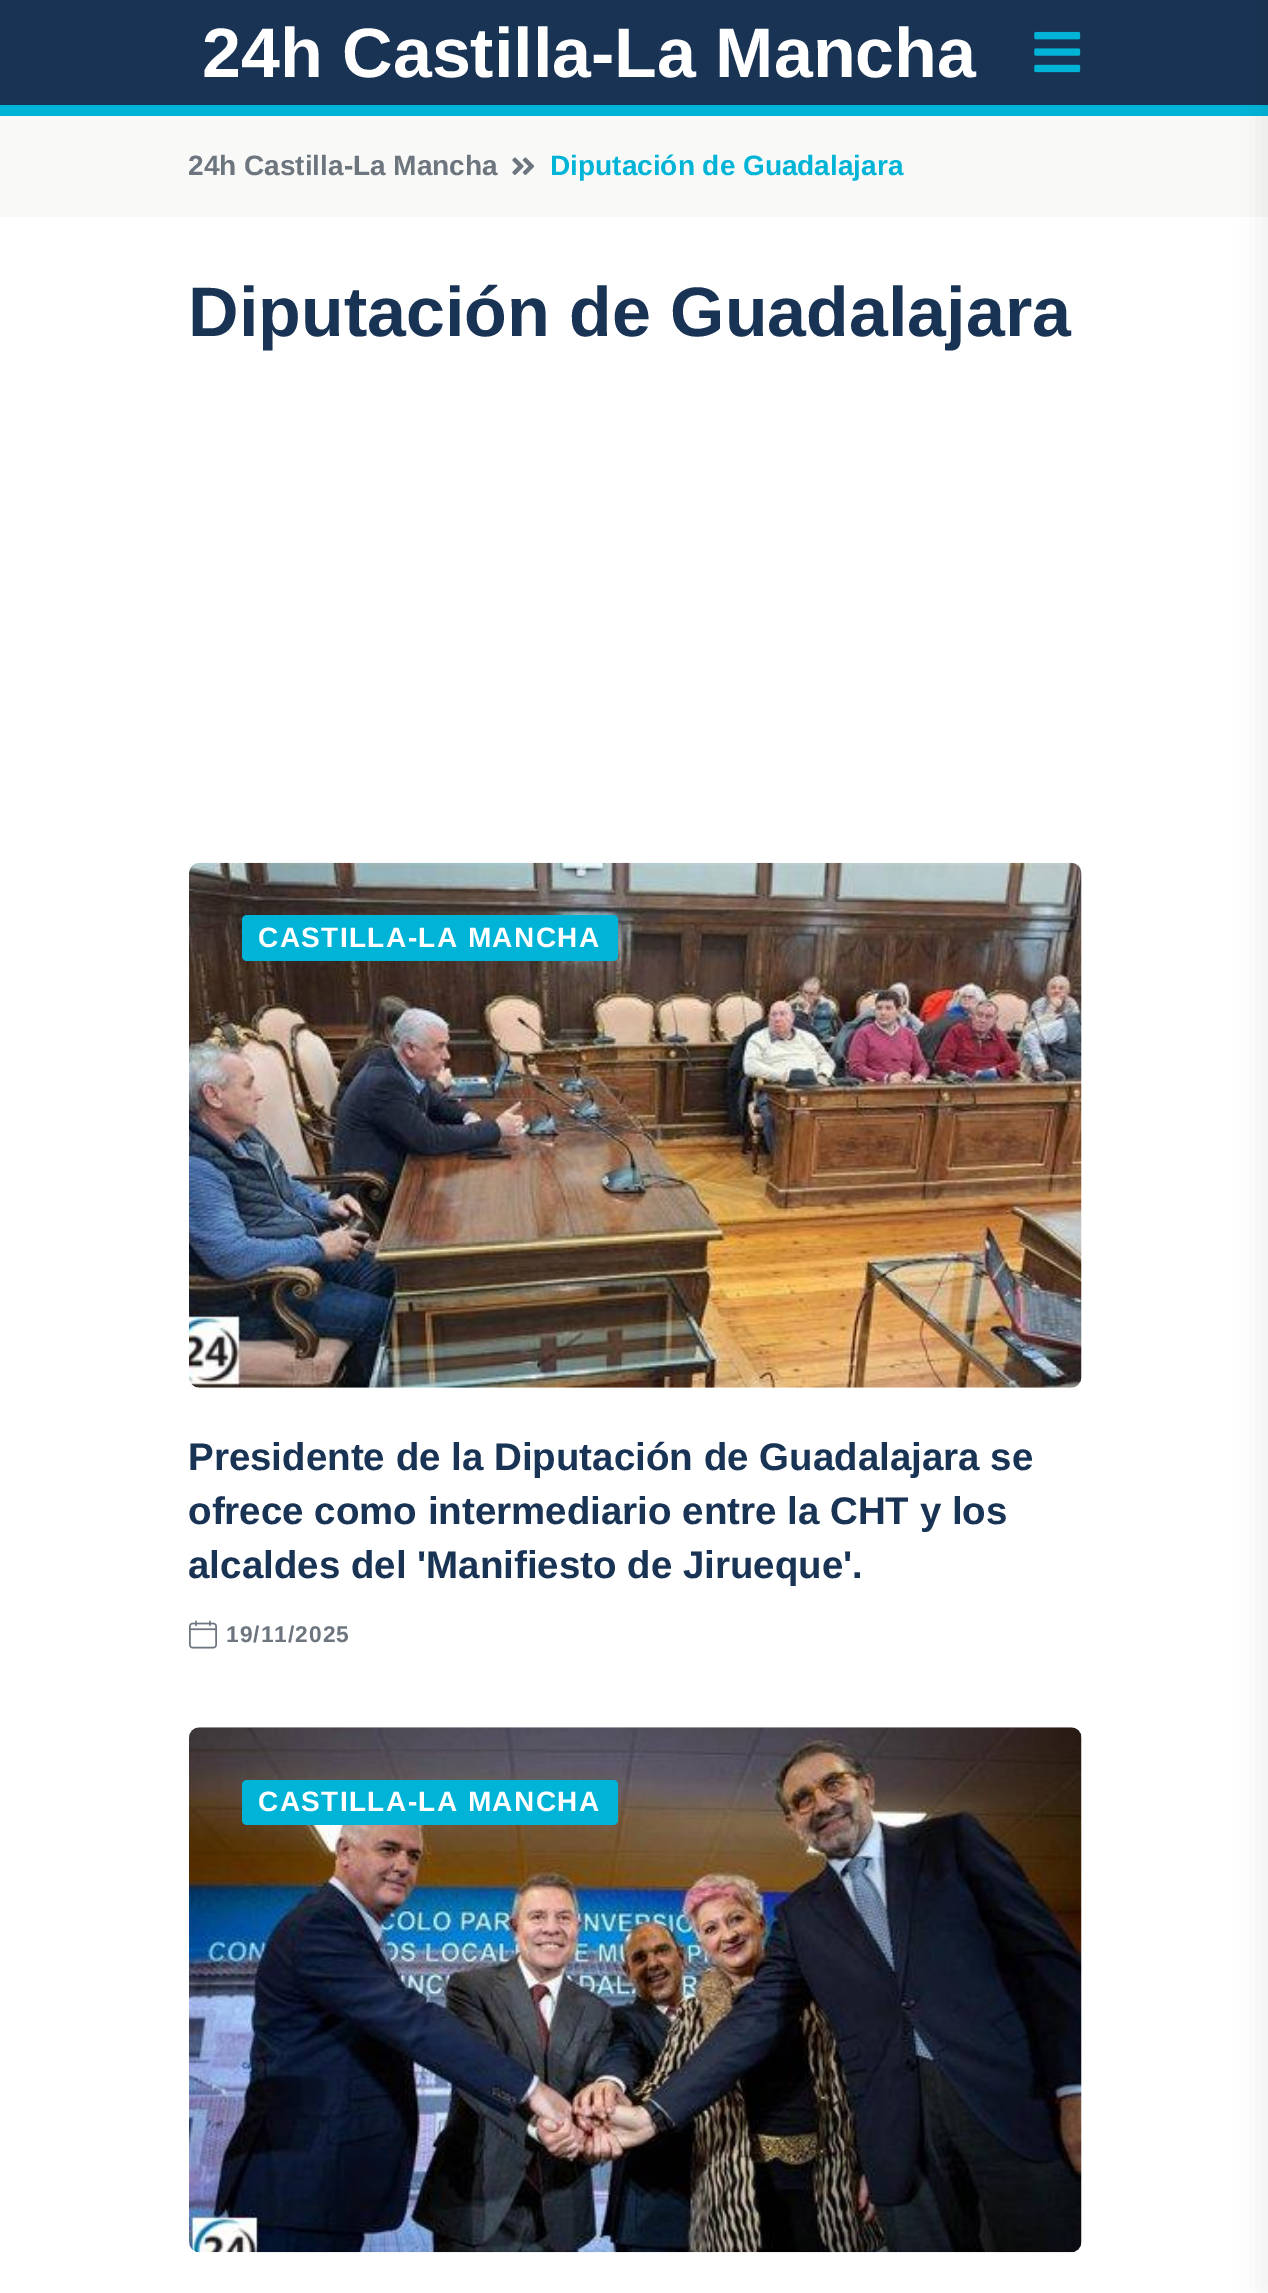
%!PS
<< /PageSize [1268 2293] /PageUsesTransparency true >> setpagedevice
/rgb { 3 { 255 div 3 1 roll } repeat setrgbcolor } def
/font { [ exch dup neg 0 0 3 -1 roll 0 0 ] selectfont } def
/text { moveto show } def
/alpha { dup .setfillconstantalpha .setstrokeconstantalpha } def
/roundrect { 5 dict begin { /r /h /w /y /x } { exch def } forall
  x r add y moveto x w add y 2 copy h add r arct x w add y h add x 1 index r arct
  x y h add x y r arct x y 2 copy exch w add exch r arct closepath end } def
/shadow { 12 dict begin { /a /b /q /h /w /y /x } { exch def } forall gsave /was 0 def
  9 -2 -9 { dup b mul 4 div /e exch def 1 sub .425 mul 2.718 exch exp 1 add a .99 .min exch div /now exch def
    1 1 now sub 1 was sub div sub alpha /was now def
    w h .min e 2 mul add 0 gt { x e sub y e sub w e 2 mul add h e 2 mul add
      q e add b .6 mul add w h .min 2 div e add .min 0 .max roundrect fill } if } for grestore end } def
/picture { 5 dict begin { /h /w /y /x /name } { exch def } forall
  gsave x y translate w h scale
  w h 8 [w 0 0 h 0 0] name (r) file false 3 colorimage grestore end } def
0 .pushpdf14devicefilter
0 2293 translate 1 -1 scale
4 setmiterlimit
255 255 255 rgb
0 0 1268 2293 rectfill
24 51 84 rgb
0 0 1268 105 rectfill
0 180 216 rgb
0 105 1268 11 rectfill
(img_01.rgb) 1034 31 47 42 picture
249 249 247 rgb
0 116 1268 101 rectfill
0 0 0 rgb
1258 0 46 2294 0 12 0.06 shadow
(img_02.rgb) 512 157 23 18 picture
(img_03.rgb) 189 862 893 526 picture
0 180 216 rgb
242 915 376 46 5 roundrect fill
(img_04.rgb) 189 1620 28 29 picture
(img_05.rgb) 189 1727 893 526 picture
242 1780 376 45 5 roundrect fill
/LiberationSans-Bold 70 font
255 255 255 rgb
(24h Castilla-La Mancha) 202 77 text
/LiberationSans-Bold 28 font
109 117 127 rgb
(24h Castilla-La Mancha) 188 175 text
0 180 216 rgb
(Diputación de Guadalajara) 550 175 text
/LiberationSans-Bold 70 font
24 51 84 rgb
(Diputación de Guadalajara) 188 336 text
/LiberationSans-Bold 28 font
255 255 255 rgb
258 947 moveto 1.4 0 (CASTILLA-LA MANCHA) ashow
/LiberationSans-Bold 38.5 font
24 51 84 rgb
(Presidente de la Diputación de Guadalajara se) 188 1470 text
(ofrece como intermediario entre la CHT y los) 188 1524 text
(alcaldes del 'Manifiesto de Jirueque'.) 188 1578 text
/LiberationSans-Bold 22.75 font
109 117 127 rgb
226 1642 moveto 1 0 (19/11/2025) ashow
/LiberationSans-Bold 28 font
255 255 255 rgb
258 1811 moveto 1.4 0 (CASTILLA-LA MANCHA) ashow
.poppdf14devicefilter showpage
